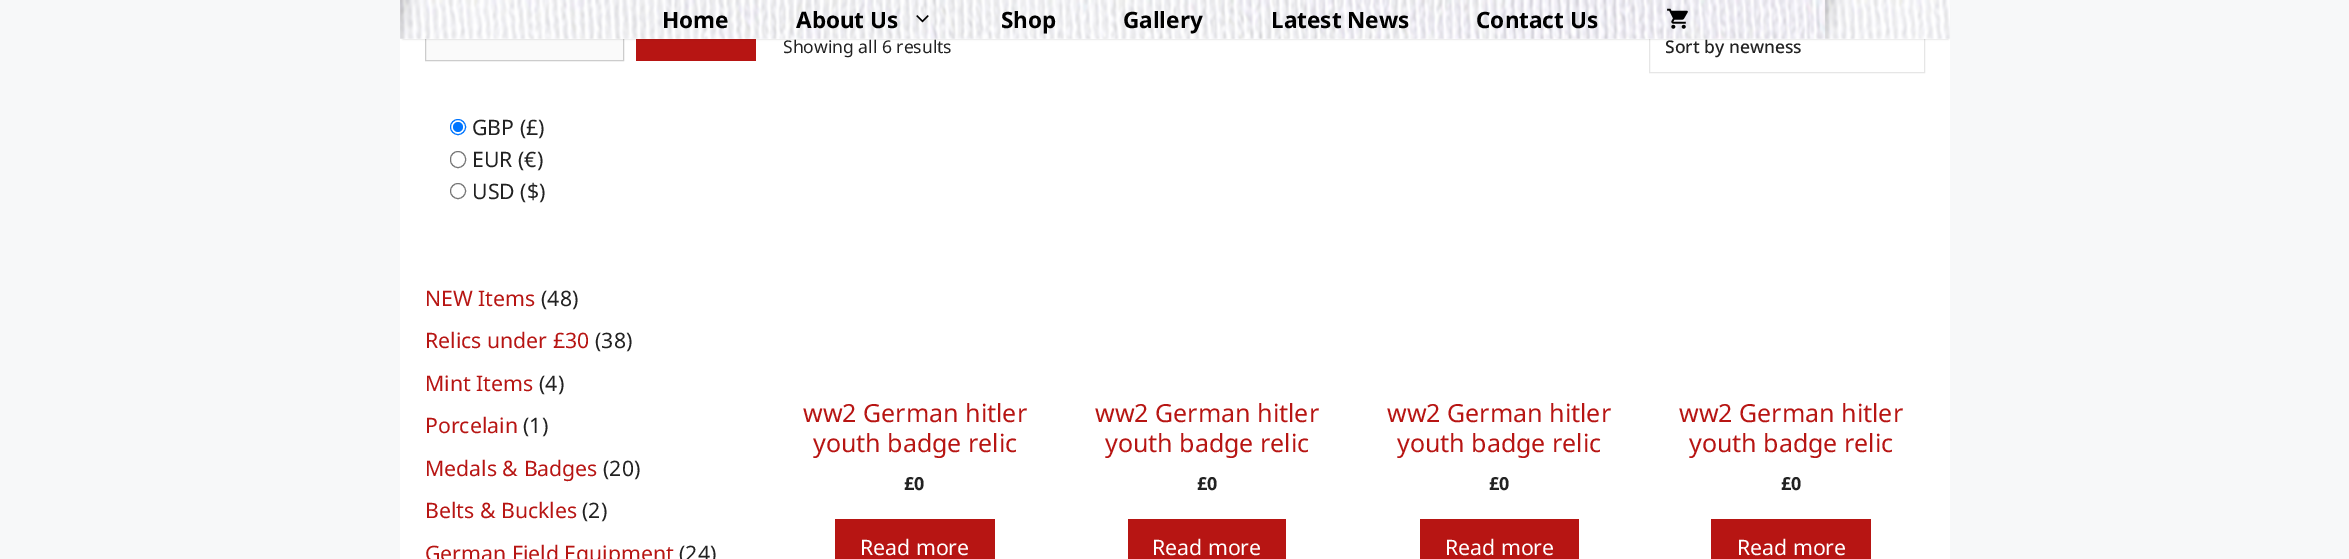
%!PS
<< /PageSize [2349 559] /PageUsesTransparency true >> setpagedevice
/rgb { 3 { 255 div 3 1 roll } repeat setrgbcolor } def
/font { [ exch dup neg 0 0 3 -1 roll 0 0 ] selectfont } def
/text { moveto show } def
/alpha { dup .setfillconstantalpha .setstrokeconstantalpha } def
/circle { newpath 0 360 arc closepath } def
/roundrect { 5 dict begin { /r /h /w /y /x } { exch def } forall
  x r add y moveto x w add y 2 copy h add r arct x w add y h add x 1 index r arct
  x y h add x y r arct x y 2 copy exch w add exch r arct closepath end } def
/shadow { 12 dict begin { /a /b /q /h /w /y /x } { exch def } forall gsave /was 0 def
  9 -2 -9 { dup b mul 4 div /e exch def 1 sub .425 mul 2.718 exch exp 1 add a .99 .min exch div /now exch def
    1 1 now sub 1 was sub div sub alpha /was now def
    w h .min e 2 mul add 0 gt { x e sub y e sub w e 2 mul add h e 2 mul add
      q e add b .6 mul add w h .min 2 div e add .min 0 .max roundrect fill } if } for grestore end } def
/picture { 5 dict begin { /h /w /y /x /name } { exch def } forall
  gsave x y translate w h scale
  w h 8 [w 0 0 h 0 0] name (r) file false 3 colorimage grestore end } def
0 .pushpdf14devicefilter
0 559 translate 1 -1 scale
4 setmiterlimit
247 248 249 rgb
0 0 2349 559 rectfill
255 255 255 rgb
400 38 1550 521 rectfill
250 250 250 rgb
426 38 197 22 rectfill
204 204 204 rgb
425.5 3.5 198 57 rectstroke
183 21 19 rgb
636 38 120 23 rectfill
230 230 230 rgb
1649.5 19.5 275 53 rectstroke
0 0 0 rgb
403 5 1545 34 0 1 0.2 shadow
(img_01.rgb) 400 0 1550 39 picture
(img_02.rgb) 916 15 13 8 picture
(img_03.rgb) 1667 8 21 21 picture
0 117 255 rgb
458 127 7.5 circle stroke
458 127 5 circle fill
118 118 118 rgb
450.5 151.5 15 16 7.5 roundrect stroke
458 191 7.5 circle stroke
183 21 19 rgb
835 519 160 40 rectfill
1128 519 158 40 rectfill
1420 519 159 40 rectfill
1711 519 160 40 rectfill
/NotoSans-Bold 22.5 font
0 0 0 rgb
(Home) 662 28 text
(About Us) 796 28 text
(Shop) 1001 28 text
(Gallery) 1123 28 text
(Latest News) 1271 28 text
(Contact Us) 1476 28 text
/NotoSans-Regular 21.25 font
34 34 34 rgb
(GBP \(£\)) 472 135 text
(EUR \(€\)) 472 167 text
(USD \($\)) 472 199 text
183 21 19 rgb
(NEW Items) 425 306 text
34 34 34 rgb
(\(48\)) 541 306 text
183 21 19 rgb
(Relics under £30) 425 348 text
34 34 34 rgb
(\(38\)) 595 348 text
183 21 19 rgb
(Mint Items) 425 391 text
34 34 34 rgb
(\(4\)) 539 391 text
183 21 19 rgb
(Porcelain) 425 433 text
34 34 34 rgb
(\(1\)) 523 433 text
183 21 19 rgb
(Medals & Badges) 425 476 text
34 34 34 rgb
(\(20\)) 603 476 text
183 21 19 rgb
(Belts & Buckles) 425 518 text
34 34 34 rgb
(\(2\)) 582 518 text
183 21 19 rgb
(German Field Equipment) 425 561 text
34 34 34 rgb
(\(24\)) 679 561 text
/NotoSans-Regular 17.5 font
(Showing all 6 results) 783 53 text
/NotoSans-Medium 17.5 font
(Sort by newness) 1665 53 text
/NotoSans-Regular 25 font
183 21 19 rgb
(ww2 German hitler) 803 422 text
(youth badge relic) 813 452 text
/NotoSans-Bold 18 font
34 34 34 rgb
(£0) 904 490 text
/NotoSans-Regular 21.25 font
255 255 255 rgb
(Read more) 860 555 text
/NotoSans-Regular 25 font
183 21 19 rgb
(ww2 German hitler) 1095 422 text
(youth badge relic) 1105 452 text
/NotoSans-Bold 18 font
34 34 34 rgb
(£0) 1197 490 text
/NotoSans-Regular 21.25 font
255 255 255 rgb
(Read more) 1152 555 text
/NotoSans-Regular 25 font
183 21 19 rgb
(ww2 German hitler) 1387 422 text
(youth badge relic) 1397 452 text
/NotoSans-Bold 18 font
34 34 34 rgb
(£0) 1489 490 text
/NotoSans-Regular 21.25 font
255 255 255 rgb
(Read more) 1445 555 text
/NotoSans-Regular 25 font
183 21 19 rgb
(ww2 German hitler) 1679 422 text
(youth badge relic) 1689 452 text
/NotoSans-Bold 18 font
34 34 34 rgb
(£0) 1781 490 text
/NotoSans-Regular 21.25 font
255 255 255 rgb
(Read more) 1737 555 text
.poppdf14devicefilter showpage
